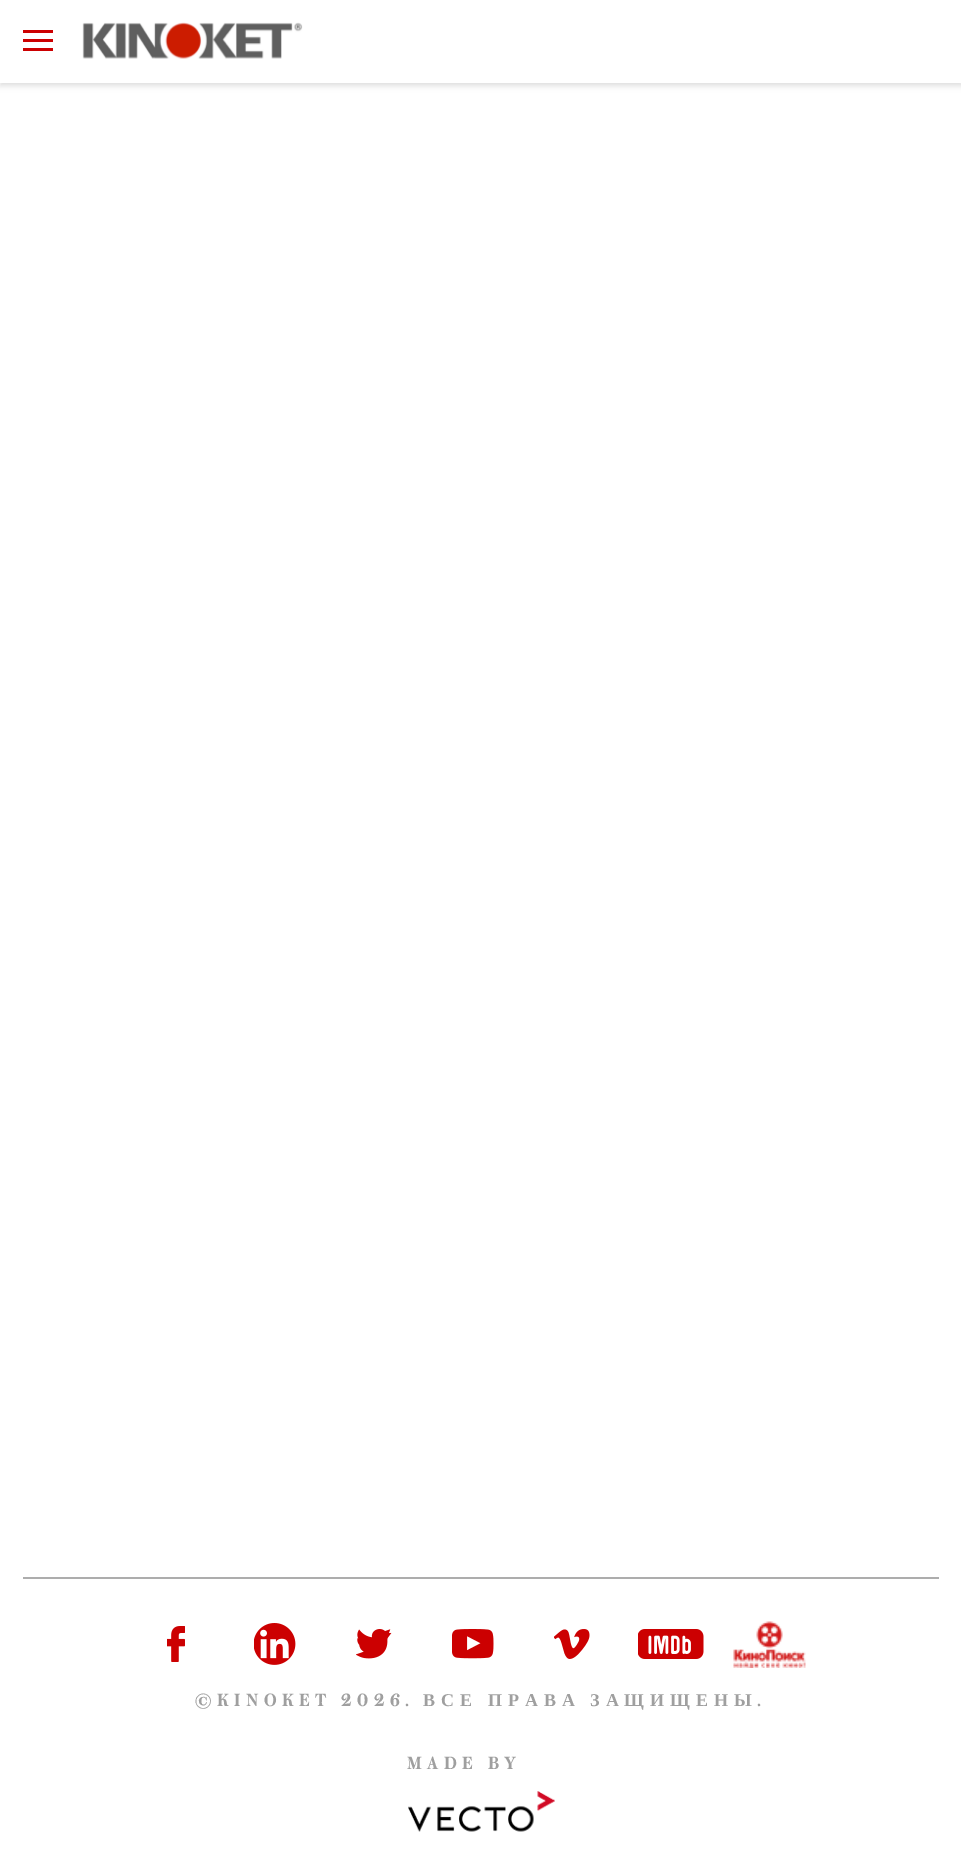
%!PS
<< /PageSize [961 1863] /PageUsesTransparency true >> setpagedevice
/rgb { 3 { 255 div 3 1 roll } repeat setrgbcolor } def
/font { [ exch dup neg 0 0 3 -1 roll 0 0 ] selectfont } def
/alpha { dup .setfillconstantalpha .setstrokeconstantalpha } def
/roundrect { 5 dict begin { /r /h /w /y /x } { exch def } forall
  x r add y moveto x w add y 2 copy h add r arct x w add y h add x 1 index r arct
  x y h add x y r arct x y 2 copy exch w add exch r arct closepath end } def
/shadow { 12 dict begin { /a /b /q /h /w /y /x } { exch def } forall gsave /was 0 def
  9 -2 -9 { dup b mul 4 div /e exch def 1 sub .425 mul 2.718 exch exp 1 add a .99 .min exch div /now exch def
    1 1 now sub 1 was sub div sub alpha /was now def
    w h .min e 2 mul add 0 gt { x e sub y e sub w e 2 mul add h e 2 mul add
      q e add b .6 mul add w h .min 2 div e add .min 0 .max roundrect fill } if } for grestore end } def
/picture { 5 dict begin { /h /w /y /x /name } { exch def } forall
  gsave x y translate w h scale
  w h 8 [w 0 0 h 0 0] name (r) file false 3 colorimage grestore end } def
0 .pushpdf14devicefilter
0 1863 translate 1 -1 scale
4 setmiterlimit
255 255 255 rgb
0 0 961 1863 rectfill
0 0 0 rgb
0 3 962 83 0 3 0.12 shadow
255 255 255 rgb
0 0 961 83 rectfill
204 0 1 rgb
23 30 30 3 rectfill
23 39 30 3 rectfill
23 48 30 3 rectfill
(img_01.rgb) 82 22 221 37 picture
173 173 173 rgb
23 1577 916 2 rectfill
(img_02.rgb) 167 1626 18 36 picture
(img_03.rgb) 254 1623 42 42 picture
(img_04.rgb) 356 1629 36 30 picture
(img_05.rgb) 452 1629 42 30 picture
(img_06.rgb) 554 1629 36 30 picture
(img_07.rgb) 638 1629 66 30 picture
(img_08.rgb) 733 1621 73 47 picture
(img_09.rgb) 408 1791 147 41 picture
/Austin-Bold 18 font
159 159 159 rgb
195 1706 moveto 6 0 (©KINOKET 2026.) ashow
/LiberationSerif-Bold 18 font
423 1706 moveto 6 0 (ВСЕ) ashow
488 1706 moveto 6 0 (ПРАВА) ashow
590 1706 moveto 6 0 (ЗАЩИЩЕНЫ) ashow
/Austin-Bold 18 font
757 1706 moveto 6 0 (.) ashow
407 1769 moveto 6 0 (MADE BY) ashow
.poppdf14devicefilter showpage
